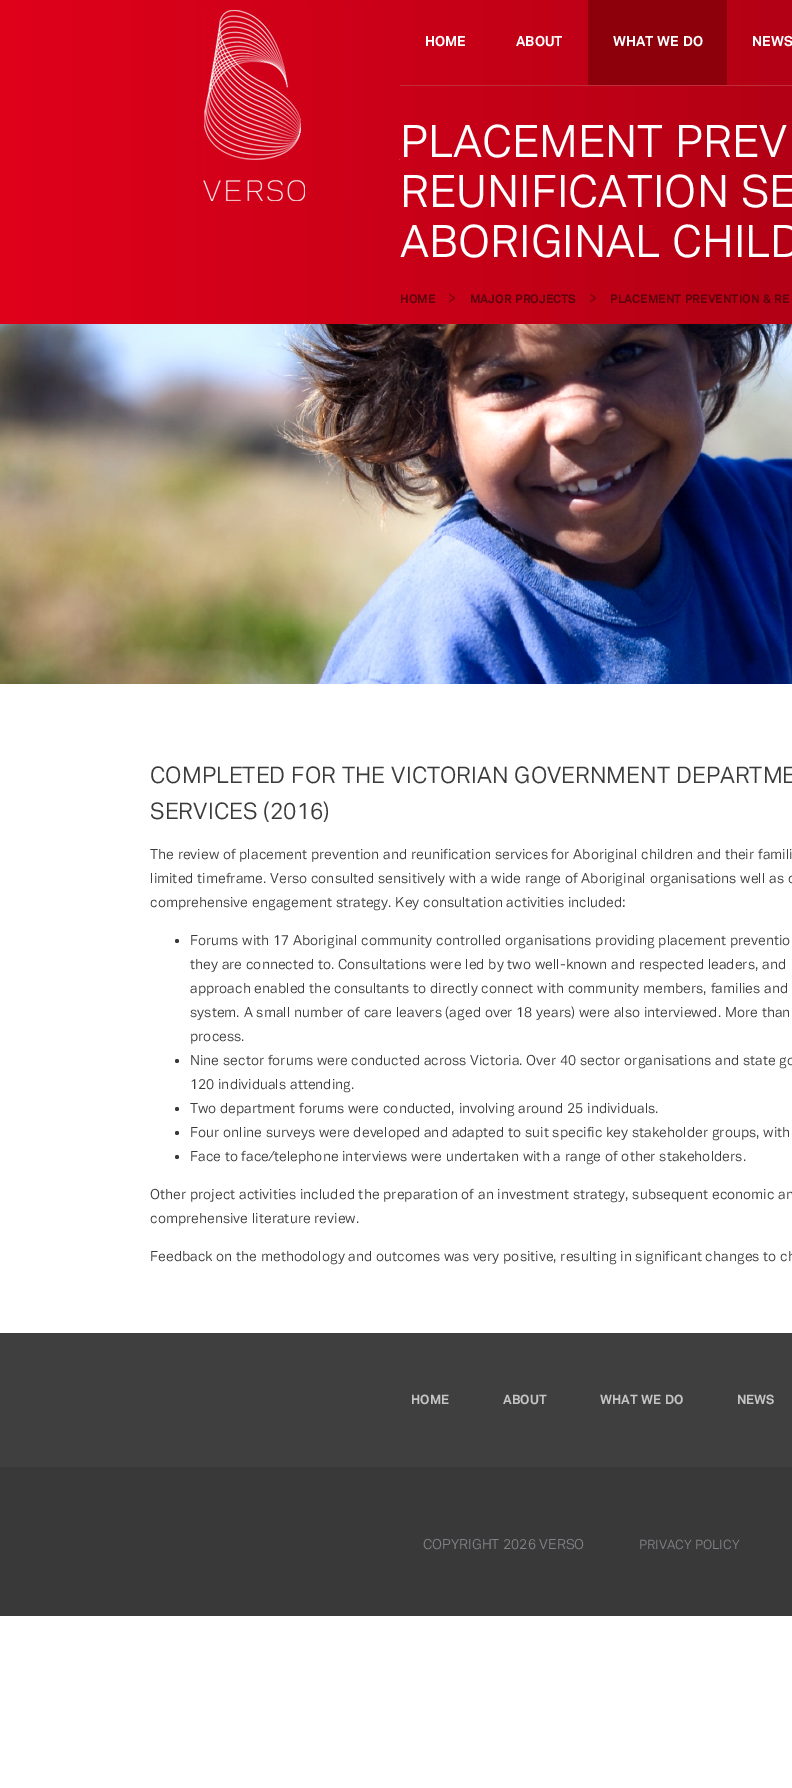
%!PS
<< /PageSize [792 1788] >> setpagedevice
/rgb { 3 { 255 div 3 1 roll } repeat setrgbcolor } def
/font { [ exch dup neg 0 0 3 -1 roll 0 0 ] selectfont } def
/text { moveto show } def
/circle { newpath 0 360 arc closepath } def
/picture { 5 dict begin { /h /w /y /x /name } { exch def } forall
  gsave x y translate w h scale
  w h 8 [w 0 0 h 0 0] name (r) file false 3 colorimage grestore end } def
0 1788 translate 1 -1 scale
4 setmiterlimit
255 255 255 rgb
0 0 792 1788 rectfill
gsave 0 0 moveto 792 0 rlineto 0 324 rlineto -792 0 rlineto closepath clip newpath
<< /ShadingType 2 /ColorSpace /DeviceRGB /Coords [0 162 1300 162] /Extend [true true] /Function << /FunctionType 2 /Domain [0 1] /C0 [0.878 0 0.106] /C1 [0.592 0 0.063] /N 1 >> >> shfill grestore
(img_01.rgb) 203 10 197 191 picture
192 44 57 rgb
400 85 392 1 rectfill
141 0 11 rgb
588 0 139 85 rectfill
(img_02.rgb) 0 324 792 360 picture
59 59 59 rgb
177 941 2 circle fill
177 1061 2 circle fill
177 1109 2 circle fill
177 1133 2 circle fill
177 1157 2 circle fill
63 63 64 rgb
0 1333 792 134 rectfill
57 57 58 rgb
0 1467 792 149 rectfill
/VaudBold-Bold 14 font
255 255 255 rgb
(HOME) 425 46 text
(ABOUT) 516 46 text
(WHAT WE DO) 613 46 text
(NEWS) 752 46 text
/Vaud-Regular 45 font
(PLACEMENT PREV) 400 157 text
(REUNIFICATION SE) 400 207 text
(ABORIGINAL CHILD) 400 257 text
/VaudBold-Bold 12 font
95 0 13 rgb
(HOME) 400 303 text
/VaudBold-Bold 15 font
124 0 15 rgb
(>) 448 303 text
/VaudBold-Bold 12 font
95 0 13 rgb
(MAJOR PROJECTS) 470 303 text
/VaudBold-Bold 15 font
124 0 15 rgb
(>) 589 303 text
/VaudBold-Bold 12 font
95 0 13 rgb
(PLACEMENT PREVENTION & RE) 610 303 text
/Vaud-Regular 23 font
59 59 59 rgb
(COMPLETED FOR THE VICTORIAN GOVERNMENT DEPARTME) 150 783 text
(SERVICES \(2016\)) 150 819 text
/Vaud-Regular 14 font
(The review of placement prevention and reunification services for Aboriginal children and their famili) 150 859 text
(limited timeframe. Verso consulted sensitively with a wide range of Aboriginal organisations well as c) 150 883 text
(comprehensive engagement strategy. Key consultation activities included:) 150 907 text
(Forums with 17 Aboriginal community controlled organisations providing placement preventio) 190 945 text
(they are connected to. Consultations were led by two well-known and respected leaders, and) 190 969 text
(approach enabled the consultants to directly connect with community members, families and) 190 993 text
(system. A small number of care leavers \(aged over 18 years\) were also interviewed. More than) 190 1017 text
(process.) 190 1041 text
(Nine sector forums were conducted across Victoria. Over 40 sector organisations and state go) 190 1065 text
(120 individuals attending.) 190 1089 text
(Two department forums were conducted, involving around 25 individuals.) 190 1113 text
(Four online surveys were developed and adapted to suit specific key stakeholder groups, with) 190 1137 text
(Face to face/telephone interviews were undertaken with a range of other stakeholders.) 190 1161 text
(Other project activities included the preparation of an investment strategy, subsequent economic an) 150 1199 text
(comprehensive literature review.) 150 1223 text
(Feedback on the methodology and outcomes was very positive, resulting in significant changes to ch) 150 1261 text
/VaudBold-Bold 13 font
196 196 196 rgb
(HOME) 411 1404 text
(ABOUT) 503 1404 text
(WHAT WE DO) 600 1404 text
(NEWS) 737 1404 text
/Vaud-Regular 14 font
128 130 133 rgb
(COPYRIGHT 2026 VERSO) 423 1549 text
/Vaud-Regular 13 font
(PRIVACY POLICY) 639 1549 text
showpage
